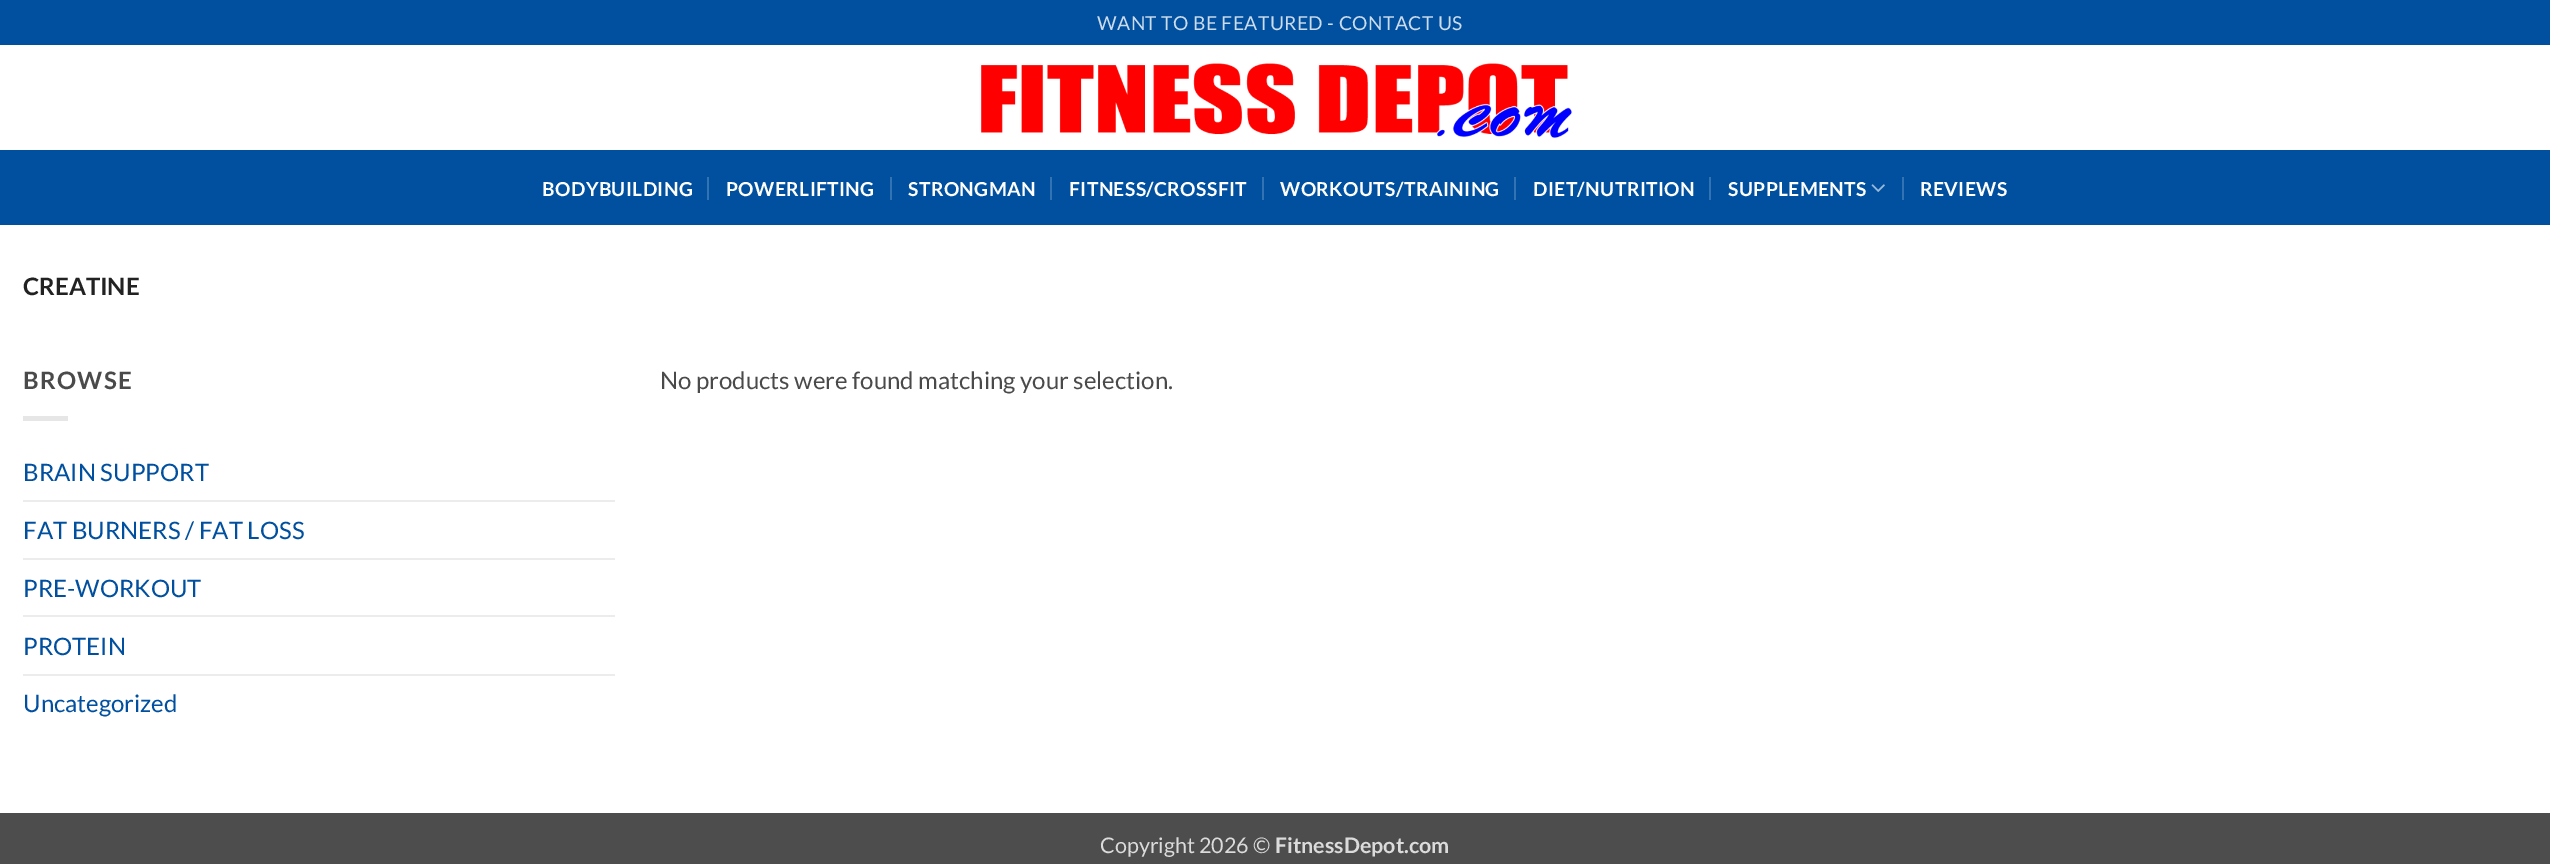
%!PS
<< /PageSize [2550 864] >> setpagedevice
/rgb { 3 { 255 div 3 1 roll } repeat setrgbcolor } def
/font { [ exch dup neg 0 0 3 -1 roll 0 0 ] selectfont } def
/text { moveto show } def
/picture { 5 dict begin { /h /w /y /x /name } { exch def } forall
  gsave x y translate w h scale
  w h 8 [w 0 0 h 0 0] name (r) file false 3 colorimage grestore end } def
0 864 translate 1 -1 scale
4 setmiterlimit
255 255 255 rgb
0 0 2550 864 rectfill
0 80 159 rgb
0 0 2550 45 rectfill
(img_01.rgb) 981 63 591 75 picture
0 150 2550 75 rectfill
51 115 178 rgb
707 177 2 23 rectfill
890 177 2 23 rectfill
1050 177 2 23 rectfill
1262 177 2 23 rectfill
1514 177 2 23 rectfill
1709 177 2 23 rectfill
(img_02.rgb) 1871 184 14 8 picture
1902 177 2 23 rectfill
230 230 230 rgb
23 416 45 5 rectfill
236 236 236 rgb
23 500 592 2 rectfill
23 558 592 2 rectfill
23 615 592 2 rectfill
23 674 592 2 rectfill
77 77 77 rgb
0 813 2550 51 rectfill
/Lato-Regular 19.25 font
204 220 236 rgb
1097 30 moveto 0.4 0 (WANT TO BE FEATURED - CONTACT US) ashow
/Lato-Bold 19.25 font
255 255 255 rgb
542 196 moveto 0.4 0 (BODYBUILDING) ashow
726 196 moveto 0.4 0 (POWERLIFTING) ashow
908 196 moveto 0.4 0 (STRONGMAN) ashow
1069 196 moveto 0.4 0 (FITNESS/CROSSFIT) ashow
1280 196 moveto 0.4 0 (WORKOUTS/TRAINING) ashow
1533 196 moveto 0.4 0 (DIET/NUTRITION) ashow
1728 196 moveto 0.4 0 (SUPPLEMENTS) ashow
1920 196 moveto 0.4 0 (REVIEWS) ashow
/Lato-Bold 24 font
34 34 34 rgb
(CREATINE) 23 295 text
74 74 74 rgb
23 389 moveto 1.25 0 (BROWSE) ashow
/Lato-Regular 24 font
0 80 159 rgb
(BRAIN SUPPORT) 23 481 text
(FAT BURNERS / FAT LOSS) 23 539 text
(PRE-WORKOUT) 23 597 text
(PROTEIN) 23 655 text
(Uncategorized) 23 712 text
74 74 74 rgb
(No products were found matching your selection.) 660 389 text
/Lato-Regular 21.5 font
219 219 219 rgb
(Copyright 2026 ©) 1100 853 text
/Lato-Bold 21.5 font
(FitnessDepot.com) 1275 853 text
showpage
